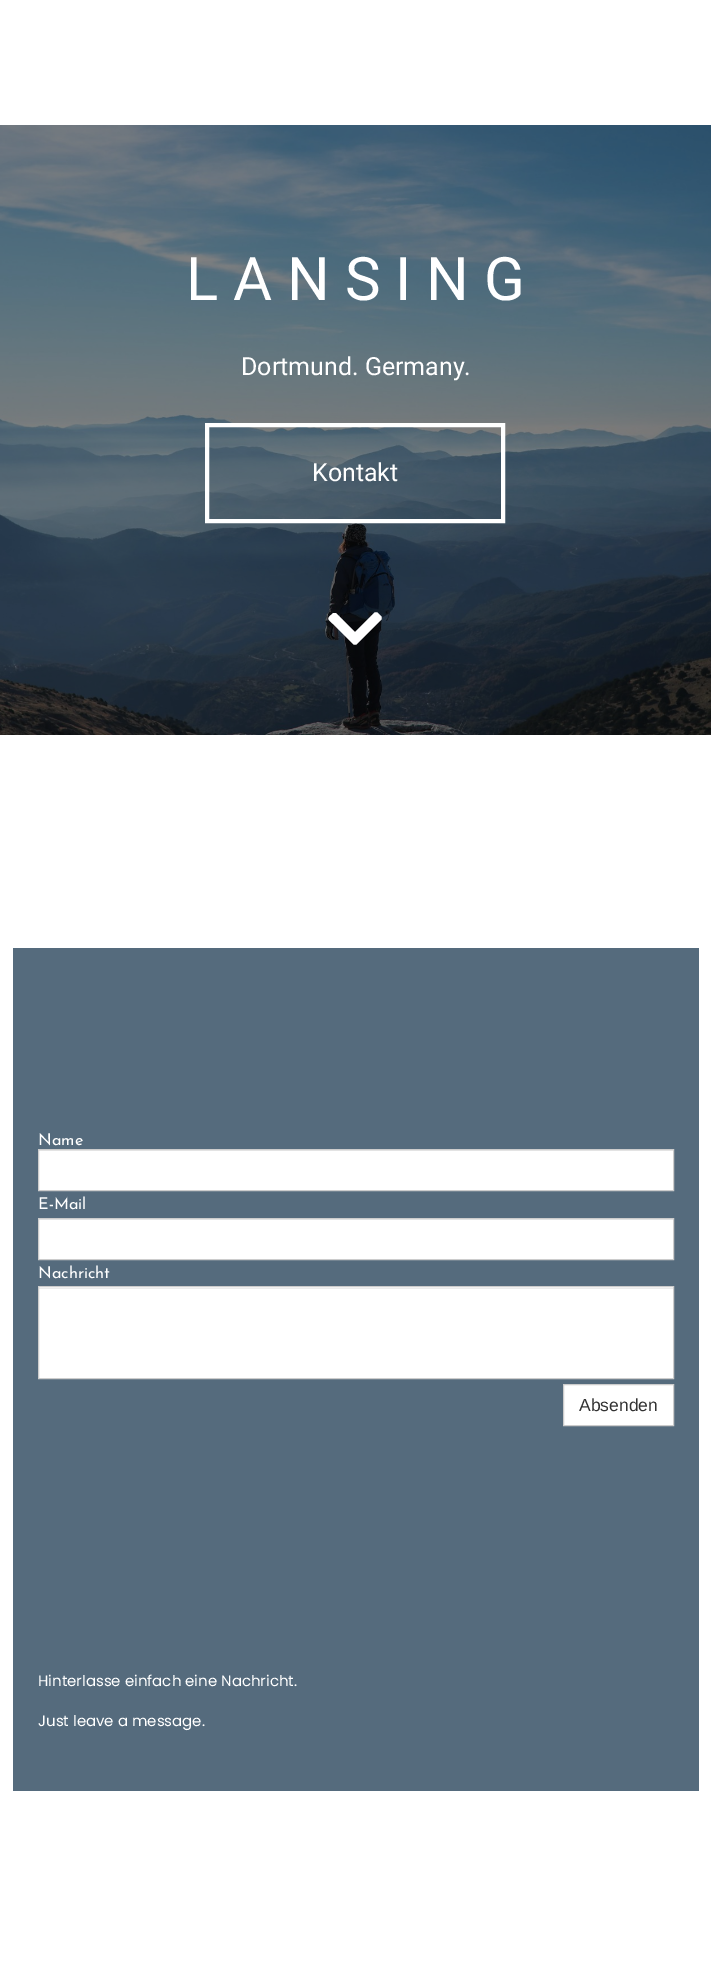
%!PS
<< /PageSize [711 1971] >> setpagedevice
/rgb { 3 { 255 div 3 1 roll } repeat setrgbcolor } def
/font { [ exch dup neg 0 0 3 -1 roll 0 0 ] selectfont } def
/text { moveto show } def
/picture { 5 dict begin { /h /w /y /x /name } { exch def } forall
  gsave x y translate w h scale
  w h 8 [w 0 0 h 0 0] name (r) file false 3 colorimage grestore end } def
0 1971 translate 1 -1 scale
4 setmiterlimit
255 255 255 rgb
0 0 711 1971 rectfill
0 0 0 rgb
0 125 711 610 rectfill
(img_01.rgb) 0 125 711 610 picture
255 255 255 rgb
4 setlinewidth
207 425 296 96 rectstroke
353 644 moveto -20 -20 rlineto -4 -4 -7 -5 -2 -9 rcurveto 2 -2 rlineto 3 0 rlineto 19 19 rlineto 19 -19 rlineto 1 -1 3 -1 4 0 rcurveto 3 3 rlineto 1 1 1 3 0 4 rcurveto -24 24 rlineto -1 1 -3 1 -4 0 rcurveto closepath fill
85 107 125 rgb
13 948 686 843 rectfill
255 255 255 rgb
39 1151 634 39 rectfill
236 236 236 rgb
39 1150 634 1 rectfill
204 204 204 rgb
1 setlinewidth
38.5 1149.5 635 41 rectstroke
255 255 255 rgb
39 1220 634 39 rectfill
236 236 236 rgb
39 1219 634 1 rectfill
204 204 204 rgb
38.5 1218.5 635 41 rectstroke
255 255 255 rgb
39 1287 634 91 rectfill
236 236 236 rgb
39 1288 634 1 rectfill
204 204 204 rgb
38.5 1286.5 635 92 rectstroke
255 255 255 rgb
563.5 1384.5 moveto 110 0 rlineto 0 41 rlineto -110 0 rlineto closepath gsave fill grestore
204 204 204 rgb
stroke
/Roboto-Regular 60 font
255 255 255 rgb
(L A N S I N G) 186 300 text
/Roboto-Regular 25 font
(Dortmund. Germany.) 241 375 text
(Kontakt) 312 481 text
/JosefinSans-Regular 16.25 font
(Name) 38 1145 text
(E-Mail) 38 1209 text
(Nachricht) 38 1278 text
/LiberationSans-Regular 17.5 font
51 51 51 rgb
(Absenden) 579 1411 text
/Poppins-Regular 15 font
255 255 255 rgb
(Hinterlasse einfach eine Nachricht.) 38 1686 text
(Just leave a message.) 38 1726 text
showpage
